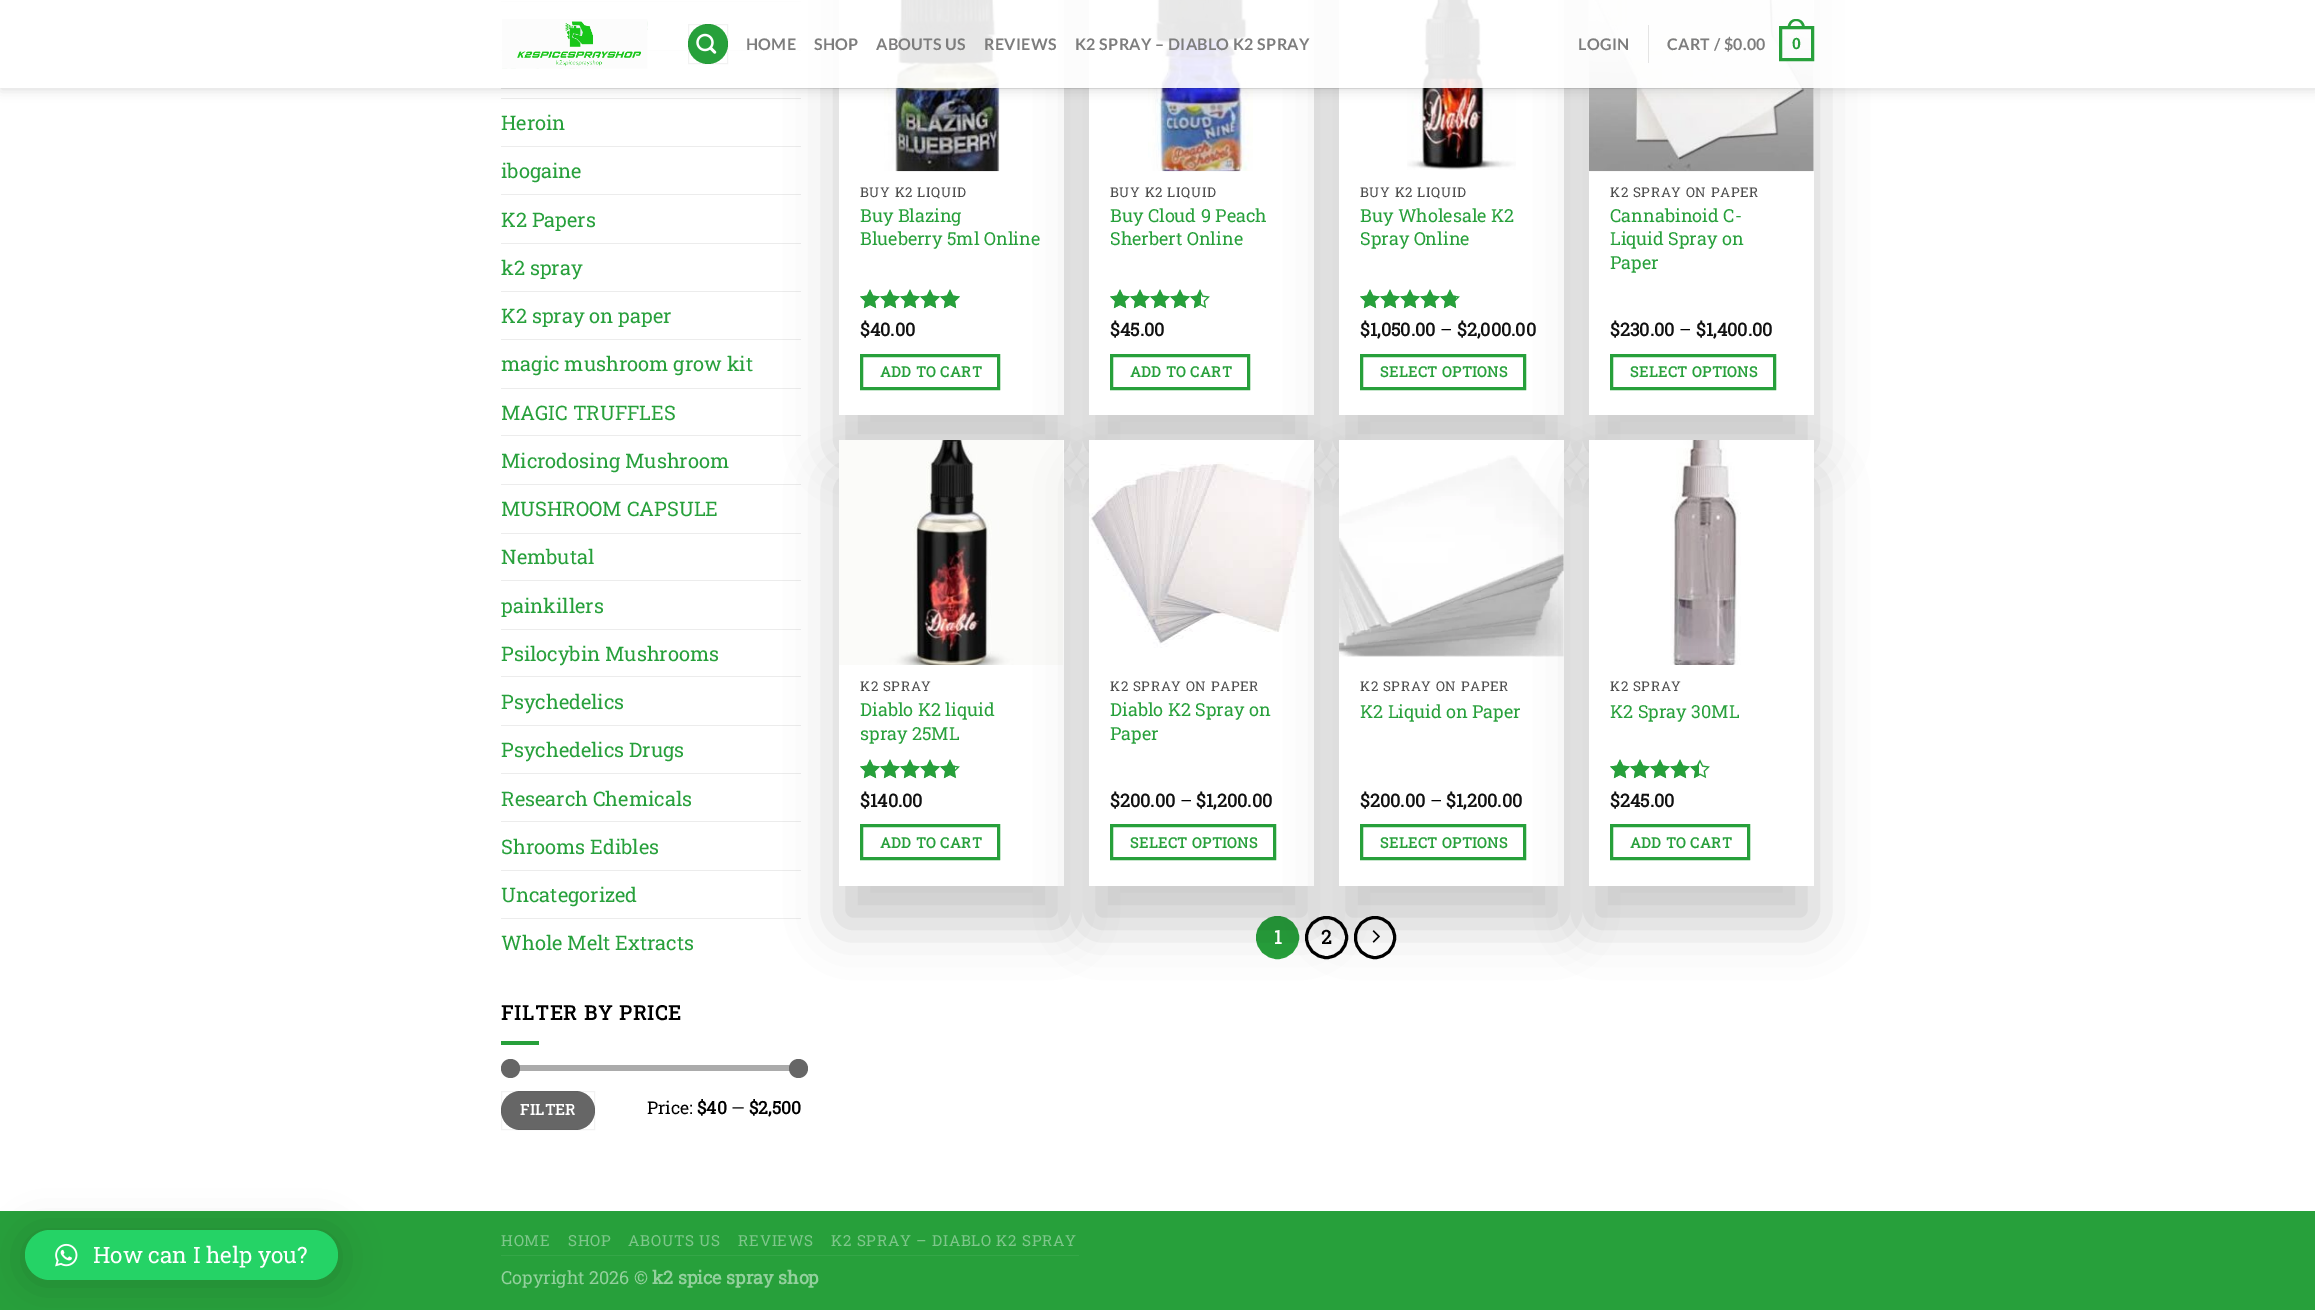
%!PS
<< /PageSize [2315 1310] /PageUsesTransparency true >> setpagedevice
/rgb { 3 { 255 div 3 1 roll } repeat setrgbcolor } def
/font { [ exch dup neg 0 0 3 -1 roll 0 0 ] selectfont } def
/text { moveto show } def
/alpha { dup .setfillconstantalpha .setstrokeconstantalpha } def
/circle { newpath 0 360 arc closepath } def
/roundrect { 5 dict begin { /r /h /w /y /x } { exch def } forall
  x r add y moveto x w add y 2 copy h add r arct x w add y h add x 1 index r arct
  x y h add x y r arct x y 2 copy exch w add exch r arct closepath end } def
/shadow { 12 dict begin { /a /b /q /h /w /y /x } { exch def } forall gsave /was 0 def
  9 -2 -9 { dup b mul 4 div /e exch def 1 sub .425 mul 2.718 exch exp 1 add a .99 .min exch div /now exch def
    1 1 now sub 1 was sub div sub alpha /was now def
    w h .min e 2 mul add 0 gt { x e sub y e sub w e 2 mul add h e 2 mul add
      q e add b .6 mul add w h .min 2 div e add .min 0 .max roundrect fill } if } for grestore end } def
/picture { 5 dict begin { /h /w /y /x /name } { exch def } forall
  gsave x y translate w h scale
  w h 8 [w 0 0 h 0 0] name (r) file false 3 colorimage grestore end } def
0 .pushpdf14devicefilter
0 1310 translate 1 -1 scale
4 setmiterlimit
255 255 255 rgb
0 0 2315 1310 rectfill
39 160 59 rgb
0 1211 2315 99 rectfill
0 0 0 rgb
25 1233 313 50 25 20 0.16 shadow
37 211 102 rgb
25 1230 313 50 25 roundrect fill
(img_01.rgb) 55 1243 23 24 picture
236 236 236 rgb
501 1 300 1 rectfill
501 50 300 1 rectfill
501 98 300 1 rectfill
501 146 300 1 rectfill
501 194 300 1 rectfill
501 243 300 1 rectfill
501 291 300 1 rectfill
501 339 300 1 rectfill
501 388 300 1 rectfill
501 435 300 1 rectfill
501 484 300 1 rectfill
0 0 0 rgb
839 -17 225 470 0 25 0.2 shadow
255 255 255 rgb
839 0 225 415 rectfill
(img_04.rgb) 884 0 116 172 picture
0 0 0 rgb
1089 -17 225 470 0 25 0.2 shadow
255 255 255 rgb
1089 0 225 415 rectfill
(img_07.rgb) 1148 0 105 172 picture
0 0 0 rgb
1339 -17 225 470 0 25 0.2 shadow
255 255 255 rgb
1339 0 225 415 rectfill
(img_09.rgb) 1407 0 109 170 picture
39 160 59 rgb
3 setlinewidth
1361.5 355.5 163 33 rectstroke
0 0 0 rgb
1589 -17 225 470 0 25 0.2 shadow
255 255 255 rgb
1589 0 225 415 rectfill
(img_11.rgb) 1588 0 226 172 picture
gsave
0 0 moveto 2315 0 rlineto 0 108 rlineto -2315 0 rlineto closepath 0 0 moveto 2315 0 rlineto 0 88 rlineto -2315 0 rlineto closepath eoclip newpath
0 0 0 rgb
1 1 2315 88 0 6 0.15 shadow
grestore
0.9 alpha
0 0 2315 88 rectfill
1 alpha
(img_02.rgb) 502 19 146 50 picture
39 160 59 rgb
708 44 20 circle fill
0.05 alpha
0 0 0 rgb
1 setlinewidth
688.5 24.5 39 39 rectstroke
1 alpha
(img_03.rgb) 696 33 21 21 picture
228 228 228 rgb
1648 25 1 38 rectfill
39 160 59 rgb
3 setlinewidth
1780.5 27.5 32 32 rectstroke
1796 19 moveto 6 0 9 4.5 9 10 rcurveto -17.5 0 rlineto 0 -5.5 3 -10 8.5 -10 rcurveto closepath 1796 21 moveto 4.5 0 6.5 4 6.5 8 rcurveto -12.5 0 rlineto 0 -4 2 -8 6 -8 rcurveto closepath eofill
0.1 alpha
0 0 0 rgb
501 88 1313 1 rectfill
1 alpha
236 236 236 rgb
501 533 300 1 rectfill
501 580 300 1 rectfill
501 629 300 1 rectfill
501 676 300 1 rectfill
501 725 300 1 rectfill
501 773 300 1 rectfill
501 821 300 1 rectfill
501 870 300 1 rectfill
501 918 300 1 rectfill
39 160 59 rgb
501 1041 38 4 rectfill
241 241 241 rgb
501 1065 300 6 3 roundrect fill
0.5 alpha
102 102 102 rgb
501 1065 300 6 3 roundrect fill
1 alpha
510.5 1068.5 9.5 circle fill
798.5 1068.5 9.5 circle fill
501 1091 94 39 19.5 roundrect fill
0.05 alpha
0 0 0 rgb
1 setlinewidth
501.5 1091.5 93 38 rectstroke
1 alpha
(img_05.rgb) 860 289 100 20 picture
(img_06.rgb) 860 289 100 20 picture
39 160 59 rgb
3 setlinewidth
861.5 355.5 137 33 rectstroke
(img_05.rgb) 1110 289 100 20 picture
(img_08.rgb) 1110 289 91 20 picture
1111.5 355.5 137 33 rectstroke
(img_05.rgb) 1360 289 100 20 picture
(img_10.rgb) 1360 289 96 20 picture
1611.5 355.5 163 33 rectstroke
0 0 0 rgb
839 478 225 446 0 25 0.2 shadow
255 255 255 rgb
839 440 225 446 rectfill
(img_12.rgb) 839 440 224 225 picture
(img_05.rgb) 860 759 100 20 picture
(img_13.rgb) 860 759 95 20 picture
39 160 59 rgb
861.5 825.5 137 33 rectstroke
1277.5 937.5 20 circle gsave fill grestore
stroke
0 0 0 rgb
1326.5 937.5 20 circle stroke
1355.5 917.5 39 40 19.5 roundrect stroke
1089 478 225 446 0 25 0.2 shadow
255 255 255 rgb
1089 440 225 446 rectfill
(img_14.rgb) 1089 462 223 186 picture
39 160 59 rgb
1111.5 825.5 163 33 rectstroke
0 0 0 rgb
1339 478 225 446 0 25 0.2 shadow
255 255 255 rgb
1339 440 225 446 rectfill
(img_15.rgb) 1339 455 225 202 picture
39 160 59 rgb
1361.5 825.5 163 33 rectstroke
0 0 0 rgb
1589 478 225 446 0 25 0.2 shadow
255 255 255 rgb
1589 440 225 446 rectfill
(img_16.rgb) 1670 440 71 225 picture
(img_05.rgb) 1610 759 100 20 picture
(img_17.rgb) 1610 759 89 20 picture
39 160 59 rgb
1611.5 825.5 137 33 rectstroke
(img_18.rgb) 1372 930 8 13 picture
53 166 72 rgb
501 1255 578 1 rectfill
/RobotoSlab-Regular 22.5 font
255 255 255 rgb
(How can I help you?) 93 1263 text
/Lato-Bold 16 font
125 125 125 rgb
746 50 moveto 0.3 0 (HOME) ashow
814 50 moveto 0.3 0 (SHOP) ashow
876 50 moveto 0.3 0 (ABOUTS US) ashow
984 50 moveto 0.3 0 (REVIEWS) ashow
1075 50 moveto 0.3 0 (K2 SPRAY – DIABLO K2 SPRAY) ashow
1578 50 moveto 0.3 0 (LOGIN) ashow
1667 50 moveto 0.3 0 (CART / $0.00) ashow
/LiberationSans-Bold 16 font
39 160 59 rgb
1792 49 moveto 0.3 0 (0) ashow
/RobotoSlab-Regular 20 font
(Heroin) 501 130 text
(ibogaine) 501 178 text
(K2 Papers) 501 227 text
(k2 spray) 501 275 text
(K2 spray on paper) 501 323 text
(magic mushroom grow kit) 501 371 text
(MAGIC TRUFFLES) 501 420 text
(Microdosing Mushroom) 501 468 text
(MUSHROOM CAPSULE) 501 516 text
(Nembutal) 501 564 text
(painkillers) 501 613 text
(Psilocybin Mushrooms) 501 661 text
(Psychedelics) 501 709 text
(Psychedelics Drugs) 501 757 text
(Research Chemicals) 501 806 text
(Shrooms Edibles) 501 854 text
(Uncategorized) 501 902 text
(Whole Melt Extracts) 501 950 text
/RobotoSlab-Bold 20 font
0 0 0 rgb
501 1020 moveto 1 0 (FILTER BY PRICE) ashow
/RobotoSlab-Bold 15 font
255 255 255 rgb
520 1115 moveto 0.5 0 (FILTER) ashow
/RobotoSlab-Regular 17.5 font
0 0 0 rgb
(Price:) 647 1114 text
/RobotoSlab-Bold 17.5 font
($40) 697 1114 text
/RobotoSlab-Regular 17.5 font
(—) 731 1114 text
/RobotoSlab-Bold 17.5 font
($2,500) 749 1114 text
/RobotoSlab-Regular 13.5 font
77 77 77 rgb
860 197 moveto 0.7 0 (BUY K2 LIQUID) ashow
/RobotoSlab-Regular 18 font
39 160 59 rgb
(Buy Blazing) 860 222 text
(Blueberry 5ml Online) 860 245 text
/RobotoSlab-Bold 18 font
17 17 17 rgb
($40.00) 860 336 text
/RobotoSlab-Bold 14.5 font
39 160 59 rgb
880 377 moveto 0.5 0 (ADD TO CART) ashow
/RobotoSlab-Regular 13.5 font
77 77 77 rgb
1110 197 moveto 0.7 0 (BUY K2 LIQUID) ashow
/RobotoSlab-Regular 18 font
39 160 59 rgb
(Buy Cloud 9 Peach) 1110 222 text
(Sherbert Online) 1110 245 text
/RobotoSlab-Bold 18 font
17 17 17 rgb
($45.00) 1110 336 text
/RobotoSlab-Bold 14.5 font
39 160 59 rgb
1130 377 moveto 0.5 0 (ADD TO CART) ashow
/RobotoSlab-Regular 13.5 font
77 77 77 rgb
1360 197 moveto 0.7 0 (BUY K2 LIQUID) ashow
/RobotoSlab-Regular 18 font
39 160 59 rgb
(Buy Wholesale K2) 1360 222 text
(Spray Online) 1360 245 text
/RobotoSlab-Bold 18 font
17 17 17 rgb
($1,050.00) 1360 336 text
/RobotoSlab-Regular 18 font
0 0 0 rgb
(–) 1440 336 text
/RobotoSlab-Bold 18 font
17 17 17 rgb
($2,000.00) 1457 336 text
/RobotoSlab-Bold 14.5 font
39 160 59 rgb
1380 377 moveto 0.5 0 (SELECT OPTIONS) ashow
/RobotoSlab-Regular 13.5 font
77 77 77 rgb
1610 197 moveto 0.7 0 (K2 SPRAY ON PAPER) ashow
/RobotoSlab-Regular 18 font
39 160 59 rgb
(Cannabinoid C-) 1610 222 text
(Liquid Spray on) 1610 245 text
(Paper) 1610 269 text
/RobotoSlab-Bold 18 font
17 17 17 rgb
($230.00) 1610 336 text
/RobotoSlab-Regular 18 font
0 0 0 rgb
(–) 1679 336 text
/RobotoSlab-Bold 18 font
17 17 17 rgb
($1,400.00) 1696 336 text
/RobotoSlab-Bold 14.5 font
39 160 59 rgb
1630 377 moveto 0.5 0 (SELECT OPTIONS) ashow
/RobotoSlab-Regular 13.5 font
77 77 77 rgb
860 691 moveto 0.7 0 (K2 SPRAY) ashow
/RobotoSlab-Regular 18 font
39 160 59 rgb
(Diablo K2 liquid) 860 716 text
(spray 25ML) 860 740 text
/RobotoSlab-Bold 18 font
17 17 17 rgb
($140.00) 860 807 text
/RobotoSlab-Bold 14.5 font
39 160 59 rgb
880 848 moveto 0.5 0 (ADD TO CART) ashow
/RobotoSlab-Regular 13.5 font
77 77 77 rgb
1110 691 moveto 0.7 0 (K2 SPRAY ON PAPER) ashow
/RobotoSlab-Regular 18 font
39 160 59 rgb
(Diablo K2 Spray on) 1110 716 text
(Paper) 1110 740 text
/RobotoSlab-Bold 18 font
17 17 17 rgb
($200.00) 1110 807 text
/RobotoSlab-Regular 18 font
0 0 0 rgb
(–) 1180 807 text
/RobotoSlab-Bold 18 font
17 17 17 rgb
($1,200.00) 1196 807 text
/RobotoSlab-Bold 14.5 font
39 160 59 rgb
1130 848 moveto 0.5 0 (SELECT OPTIONS) ashow
/RobotoSlab-Regular 13.5 font
77 77 77 rgb
1360 691 moveto 0.7 0 (K2 SPRAY ON PAPER) ashow
/RobotoSlab-Regular 18 font
39 160 59 rgb
(K2 Liquid on Paper) 1360 718 text
/RobotoSlab-Bold 18 font
17 17 17 rgb
($200.00) 1360 807 text
/RobotoSlab-Regular 18 font
0 0 0 rgb
(–) 1430 807 text
/RobotoSlab-Bold 18 font
17 17 17 rgb
($1,200.00) 1446 807 text
/RobotoSlab-Bold 14.5 font
39 160 59 rgb
1380 848 moveto 0.5 0 (SELECT OPTIONS) ashow
/RobotoSlab-Regular 13.5 font
77 77 77 rgb
1610 691 moveto 0.7 0 (K2 SPRAY) ashow
/RobotoSlab-Regular 18 font
39 160 59 rgb
(K2 Spray 30ML) 1610 718 text
/RobotoSlab-Bold 18 font
17 17 17 rgb
($245.00) 1610 807 text
/RobotoSlab-Bold 14.5 font
39 160 59 rgb
1630 848 moveto 0.5 0 (ADD TO CART) ashow
/RobotoSlab-Bold 19 font
255 255 255 rgb
(1) 1274 944 text
0 0 0 rgb
(2) 1321 944 text
/RobotoSlab-Regular 15.25 font
126 198 138 rgb
501 1246 moveto 0.75 0 (HOME) ashow
568 1246 moveto 0.75 0 (SHOP) ashow
628 1246 moveto 0.75 0 (ABOUTS US) ashow
738 1246 moveto 0.75 0 (REVIEWS) ashow
831 1246 moveto 0.75 0 (K2 SPRAY – DIABLO K2 SPRAY) ashow
/RobotoSlab-Regular 18 font
147 208 157 rgb
(Copyright 2026 ©) 501 1284 text
/RobotoSlab-Bold 18 font
(k2 spice spray shop) 652 1284 text
.poppdf14devicefilter showpage
